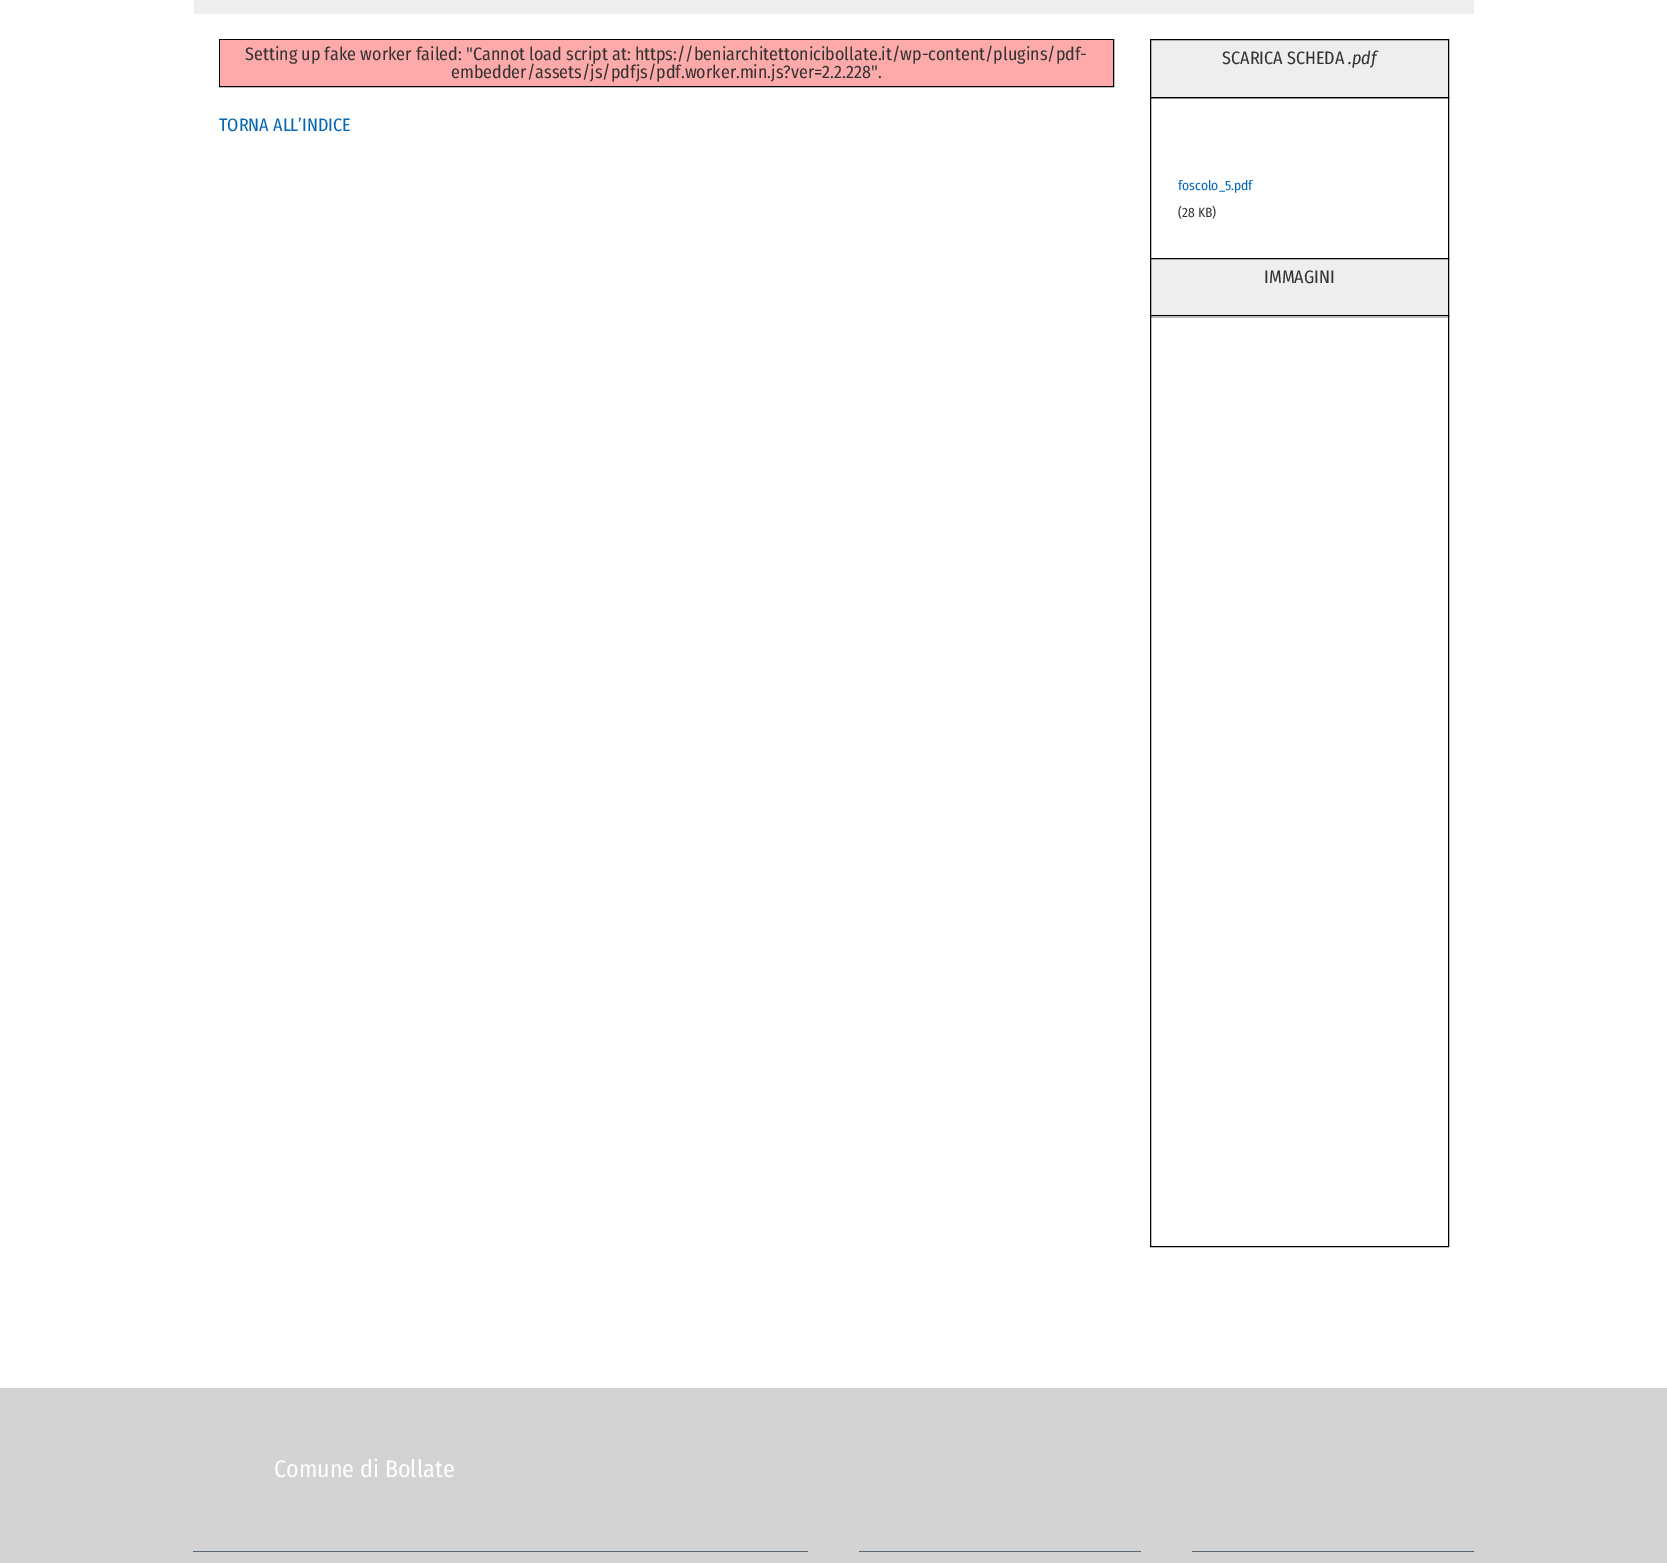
%!PS
<< /PageSize [1667 1563] >> setpagedevice
/rgb { 3 { 255 div 3 1 roll } repeat setrgbcolor } def
/font { [ exch dup neg 0 0 3 -1 roll 0 0 ] selectfont } def
/text { moveto show } def
0 1563 translate 1 -1 scale
4 setmiterlimit
255 255 255 rgb
0 0 1667 1563 rectfill
238 238 238 rgb
194 0 1280 14 rectfill
0 0 0 rgb
219.5 39.5 894 47 rectstroke
255 170 170 rgb
220 40 893 46 rectfill
238 238 238 rgb
1150.5 39.5 moveto 298 0 rlineto 0 58 rlineto -298 0 rlineto closepath gsave fill grestore
0 0 0 rgb
stroke
1150.5 97.5 298 161 rectstroke
238 238 238 rgb
1151 259 297 56 rectfill
0 0 0 rgb
1150.5 258.5 298 58 rectstroke
255 255 255 rgb
1151 316 297 1 rectfill
0 0 0 rgb
1150.5 315.5 298 931 rectstroke
211 211 211 rgb
0 1388 1667 175 rectfill
90 103 114 rgb
193 1551 615 1 rectfill
859 1551 282 1 rectfill
1192 1551 282 1 rectfill
/FiraSansCondensed-Regular 18 font
51 51 51 rgb
(Setting up fake worker failed: "Cannot load script at: https://beniarchitettonicibollate.it/wp-content/plugins/pdf-) 245 60 text
(embedder/assets/js/pdfjs/pdf.worker.min.js?ver=2.2.228".) 451 78 text
5 103 179 rgb
(TORNA ALL’INDICE) 219 131 text
51 51 51 rgb
(SCARICA SCHEDA) 1222 64 text
/FiraSansCondensed-Italic 18 font
(.pdf) 1348 64 text
/FiraSansCondensed-Regular 13.5 font
5 103 179 rgb
(foscolo_5.pdf) 1178 190 text
51 51 51 rgb
(\(28 KB\)) 1178 217 text
/FiraSansCondensed-Regular 18 font
(IMMAGINI) 1264 283 text
/FiraSansCondensed-Regular 24 font
255 255 255 rgb
(Comune di Bollate) 274 1477 text
showpage
